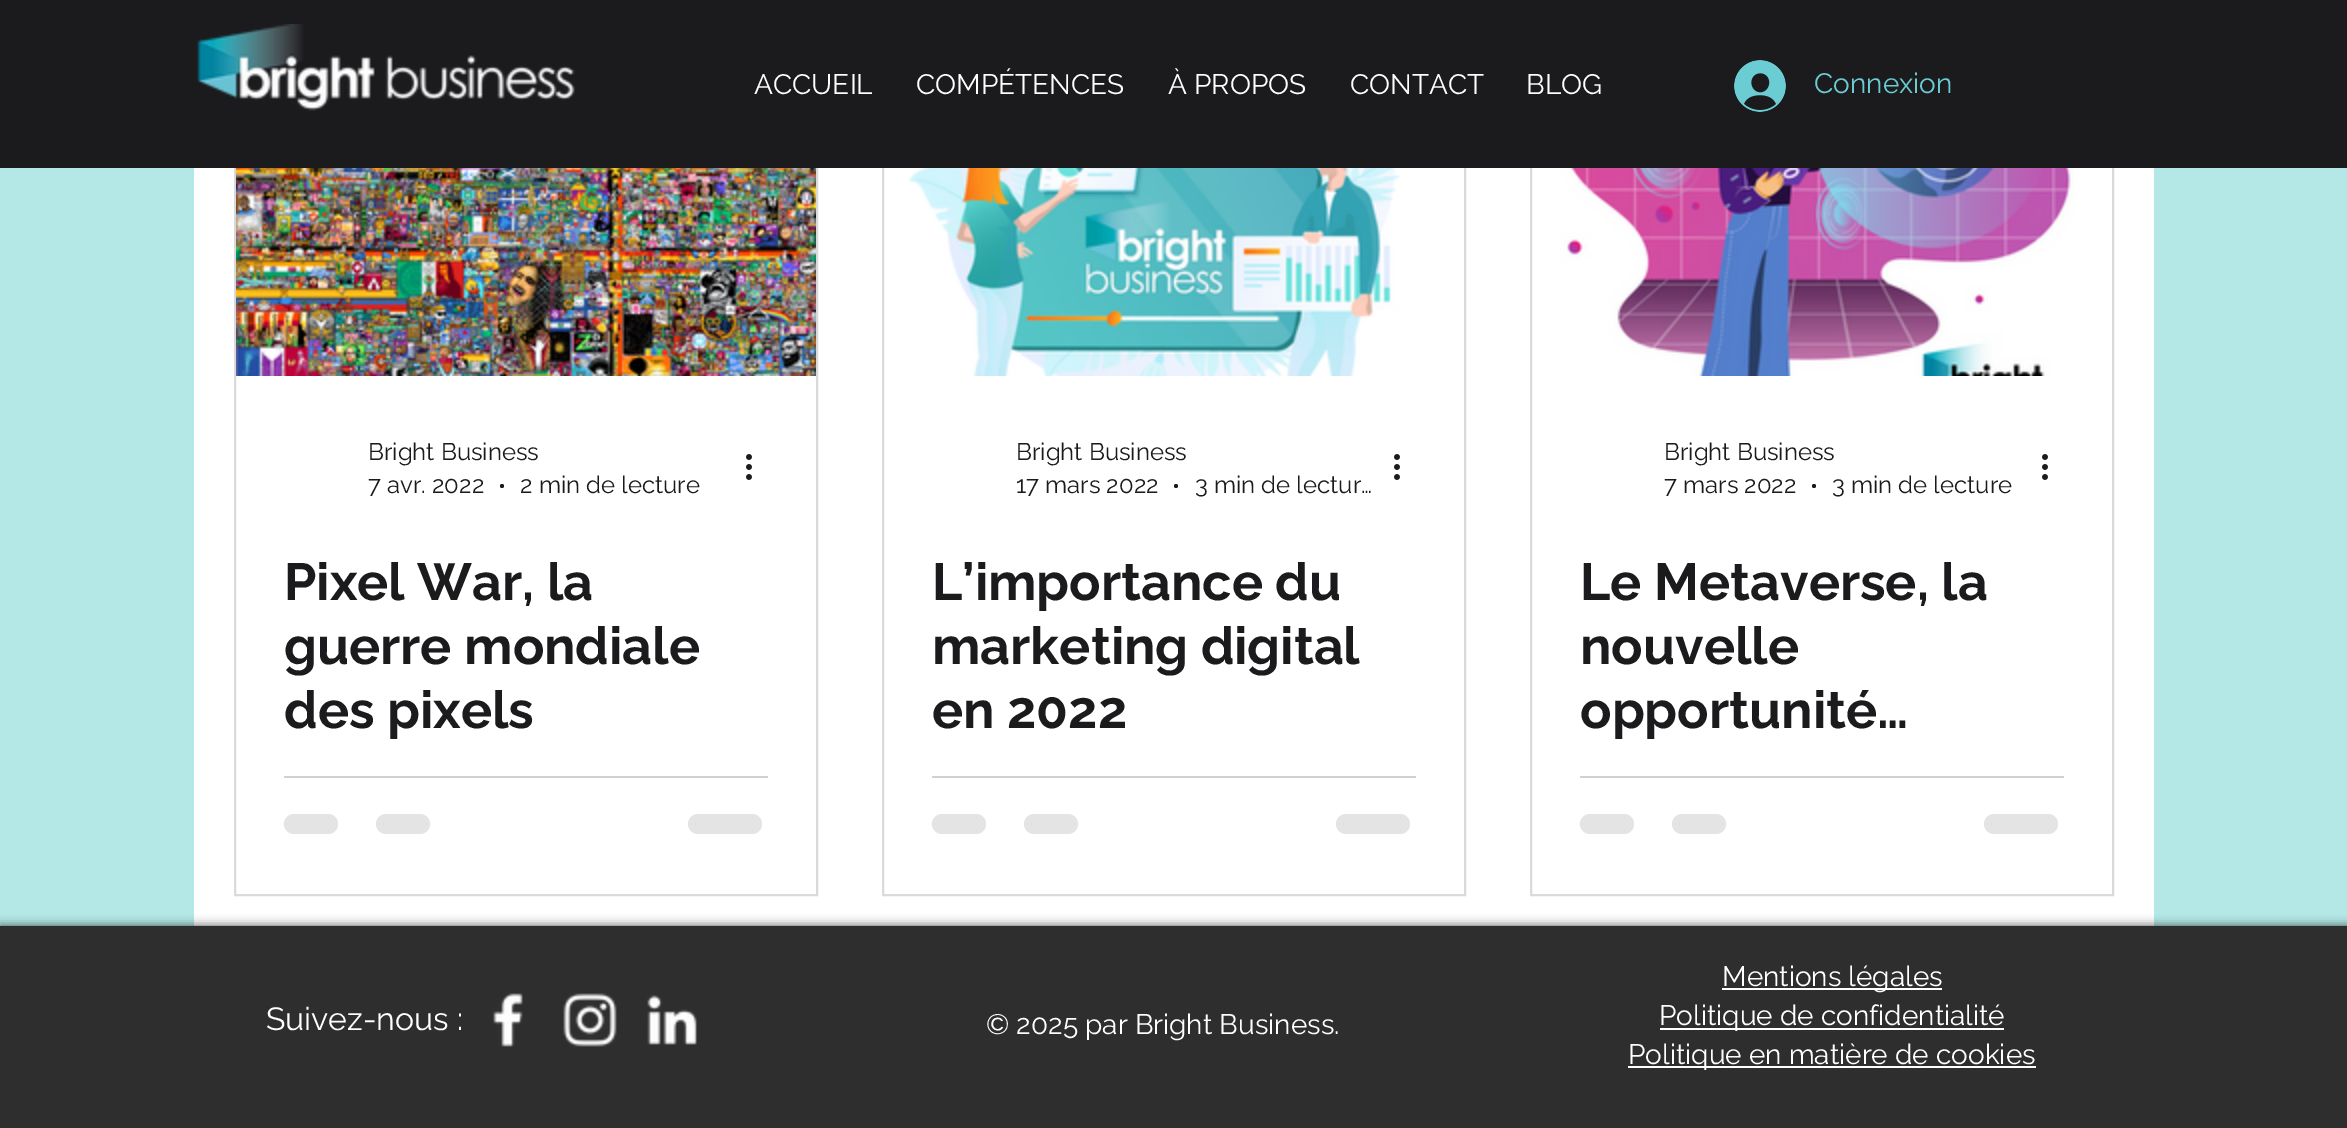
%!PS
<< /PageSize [2347 1128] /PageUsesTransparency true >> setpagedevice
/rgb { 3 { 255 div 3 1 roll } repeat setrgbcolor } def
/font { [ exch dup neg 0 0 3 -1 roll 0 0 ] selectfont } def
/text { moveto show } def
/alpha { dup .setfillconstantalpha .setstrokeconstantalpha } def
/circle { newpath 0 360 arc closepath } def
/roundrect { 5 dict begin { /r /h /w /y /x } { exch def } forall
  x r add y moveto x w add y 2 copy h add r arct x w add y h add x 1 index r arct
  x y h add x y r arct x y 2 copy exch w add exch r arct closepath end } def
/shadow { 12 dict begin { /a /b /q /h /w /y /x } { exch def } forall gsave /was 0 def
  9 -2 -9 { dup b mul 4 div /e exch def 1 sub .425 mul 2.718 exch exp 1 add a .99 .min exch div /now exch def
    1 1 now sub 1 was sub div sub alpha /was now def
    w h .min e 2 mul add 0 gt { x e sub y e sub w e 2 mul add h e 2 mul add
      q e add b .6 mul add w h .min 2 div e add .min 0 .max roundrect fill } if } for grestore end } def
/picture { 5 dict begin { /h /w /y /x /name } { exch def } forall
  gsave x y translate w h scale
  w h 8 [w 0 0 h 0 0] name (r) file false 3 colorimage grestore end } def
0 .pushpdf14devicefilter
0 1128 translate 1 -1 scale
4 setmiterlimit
180 232 231 rgb
0 0 2347 1128 rectfill
255 255 255 rgb
194 168 1960 758 rectfill
218 218 218 rgb
2 setlinewidth
235 45 582 850 rectstroke
883 45 582 850 rectstroke
1531 45 582 850 rectstroke
27 27 30 rgb
0 0 2347 168 rectfill
(img_01.rgb) 197 24 378 87 picture
(img_02.rgb) 1734 60 52 52 picture
(img_03.rgb) 236 168 580 208 picture
502 486 2 circle fill
(img_04.rgb) 746 454 6 26 picture
209 209 210 rgb
284 776 484 2 rectfill
228 228 228 rgb
284 814 54 20 10 roundrect fill
376 814 54 20 10 roundrect fill
688 814 74 20 10 roundrect fill
(img_05.rgb) 908 168 493 208 picture
27 27 30 rgb
1176 486 2 circle fill
(img_04.rgb) 1394 454 6 26 picture
209 209 210 rgb
932 776 484 2 rectfill
228 228 228 rgb
932 814 54 20 10 roundrect fill
1024 814 54 20 10 roundrect fill
1336 814 74 20 10 roundrect fill
(img_06.rgb) 1557 168 530 208 picture
27 27 30 rgb
1814 486 2 circle fill
(img_04.rgb) 2042 454 6 26 picture
209 209 210 rgb
1580 776 484 2 rectfill
228 228 228 rgb
1580 814 54 20 10 roundrect fill
1672 814 54 20 10 roundrect fill
1984 814 74 20 10 roundrect fill
0 0 0 rgb
0 926 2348 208 0 5 0.7 shadow
47 46 46 rgb
0 926 2347 202 rectfill
(img_07.rgb) 493 993 30 54 picture
(img_08.rgb) 563 993 54 54 picture
(img_09.rgb) 647 995 50 50 picture
255 255 255 rgb
1722 988 220 2 rectfill
1660 1028 344 2 rectfill
1628 1066 408 2 rectfill
/Raleway-Regular 28 font
(ACCUEIL) 754 94 text
(COMPÉTENCES) 916 94 text
(À PROPOS) 1168 94 text
(CONTACT) 1350 94 text
(BLOG) 1526 94 text
108 204 211 rgb
(Connexion) 1814 93 text
/Raleway-Regular 24 font
27 27 30 rgb
(Bright Business) 368 460 text
(7 avr. 2022) 368 493 text
(2 min de lecture) 520 493 text
/Raleway-Bold 52 font
(Pixel War, la) 284 600 text
(guerre mondiale) 284 664 text
(des pixels) 284 728 text
/Raleway-Regular 24 font
(Bright Business) 1016 460 text
(17 mars 2022) 1016 493 text
(3 min de lectur…) 1195 493 text
/Raleway-Bold 52 font
(L’importance du) 932 600 text
(marketing digital) 932 664 text
(en 2022) 932 728 text
/Raleway-Regular 24 font
(Bright Business) 1664 460 text
(7 mars 2022) 1664 493 text
(3 min de lecture) 1832 493 text
/Raleway-Bold 52 font
(Le Metaverse, la) 1580 600 text
(nouvelle) 1580 664 text
(opportunité…) 1580 728 text
/Raleway-Regular 32 font
255 255 255 rgb
(Suivez-nous :) 266 1030 text
/Raleway-Regular 28 font
(© 2025 par Bright Business.) 986 1034 text
(Mentions légales) 1722 986 text
(Politique de confidentialité) 1659 1025 text
(Politique en matière de cookies) 1628 1064 text
.poppdf14devicefilter showpage
